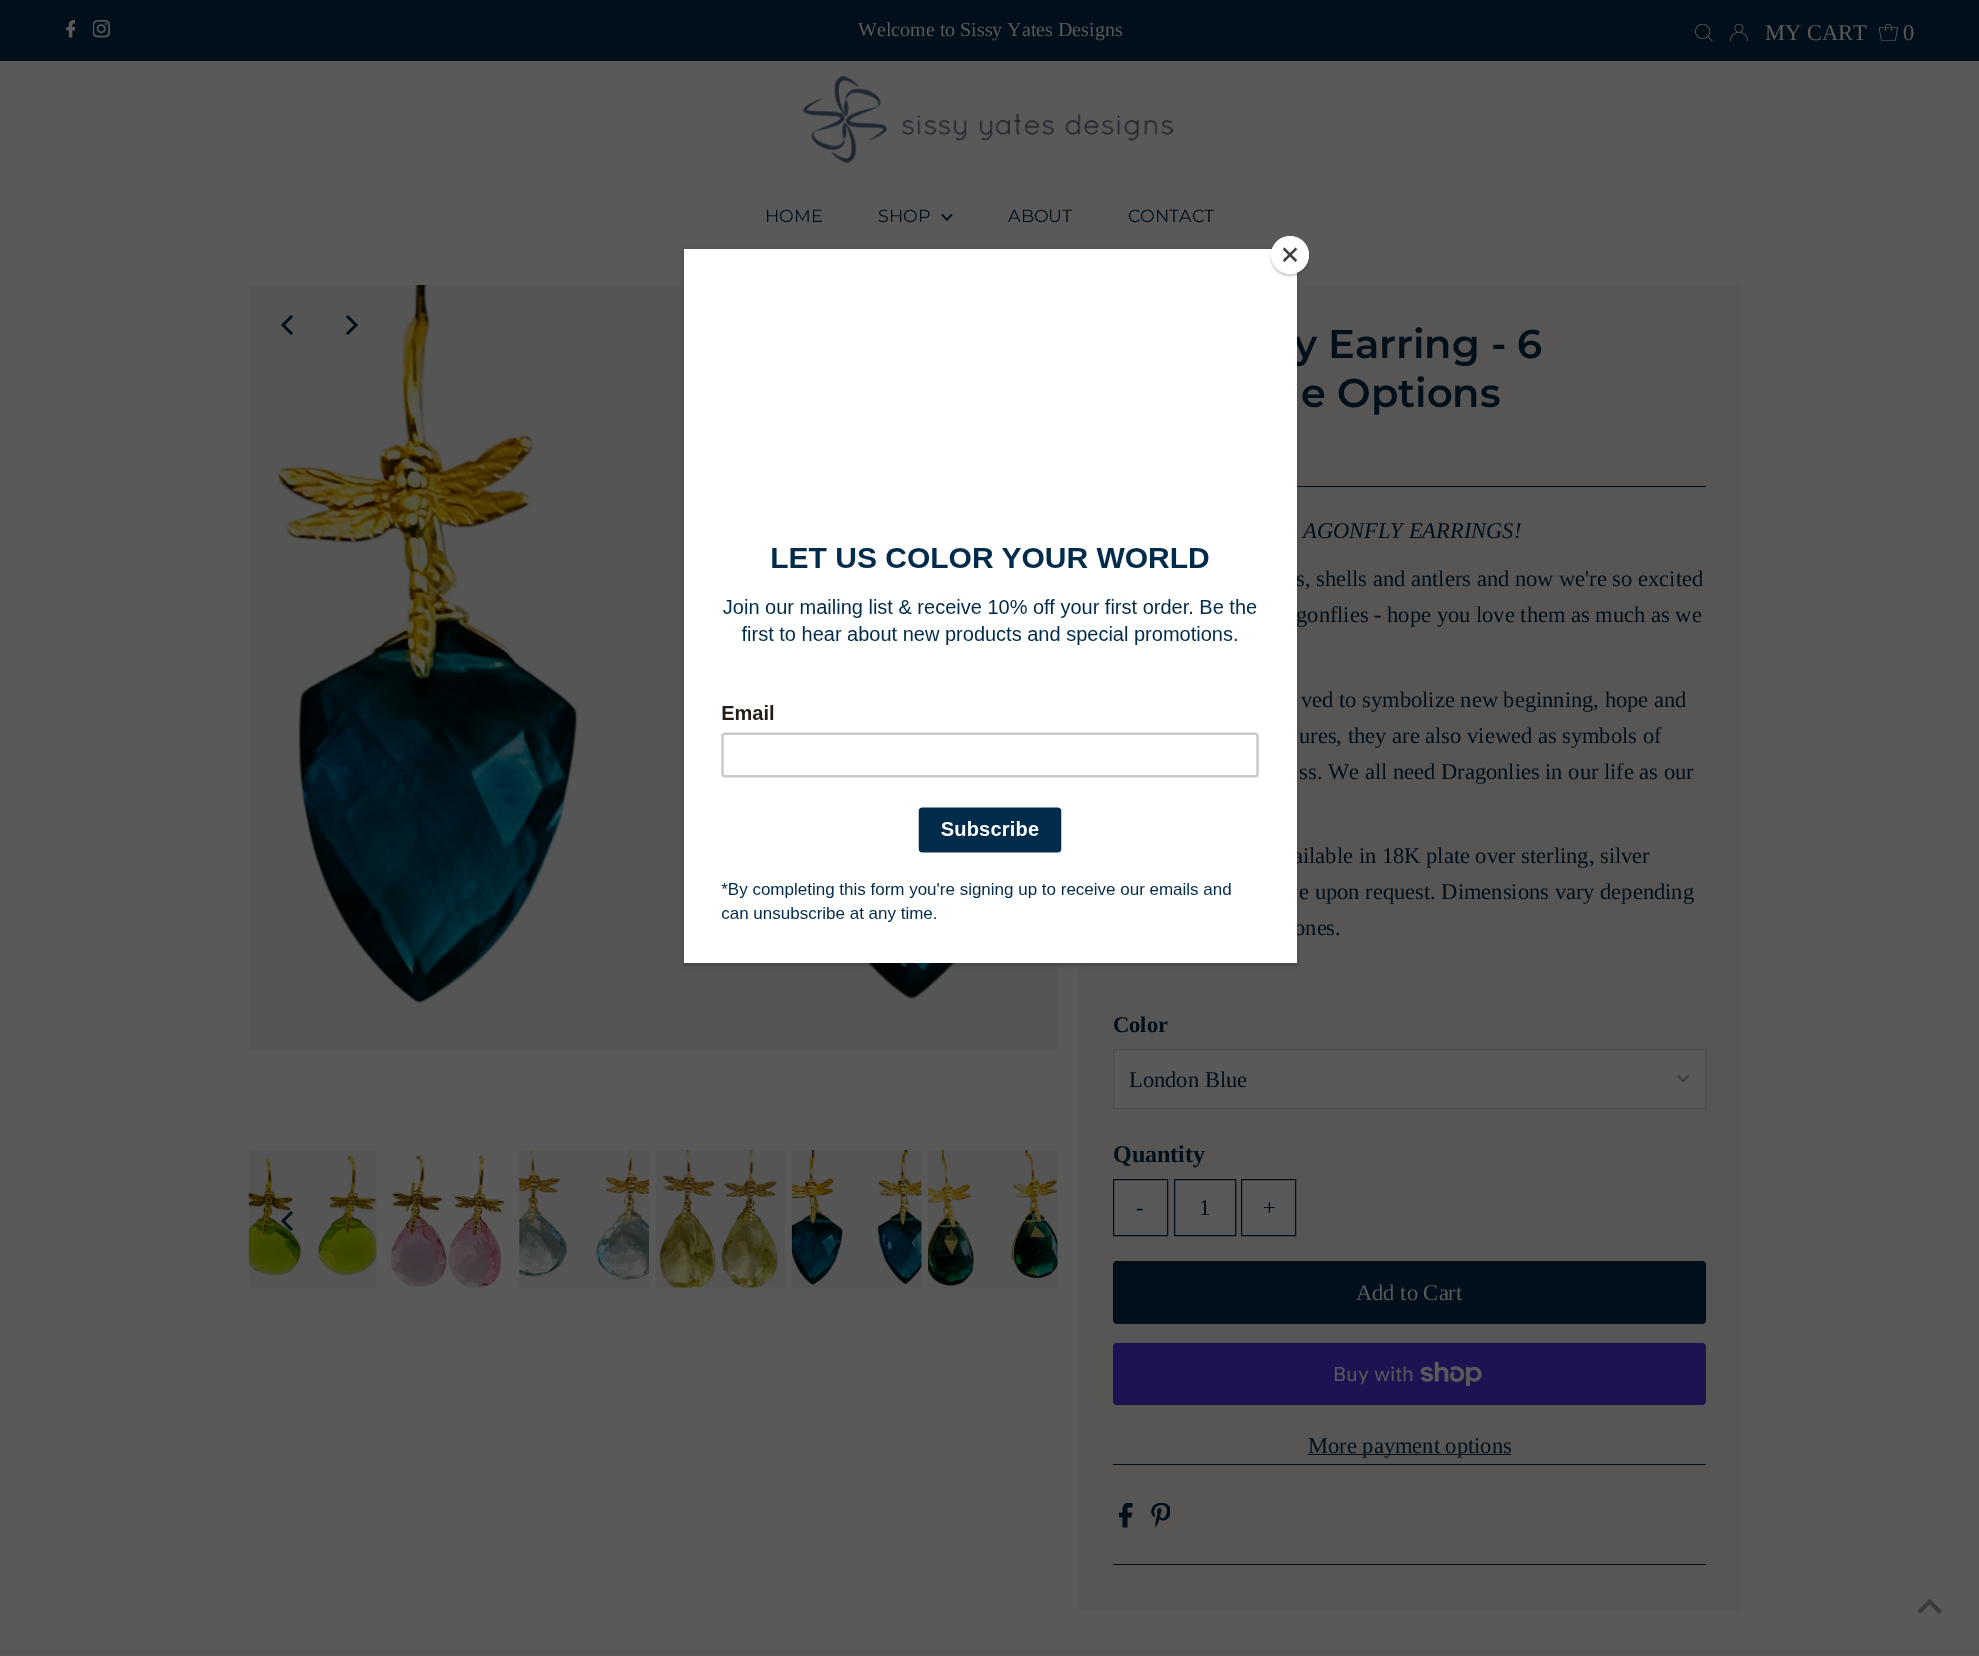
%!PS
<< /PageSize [1979 1656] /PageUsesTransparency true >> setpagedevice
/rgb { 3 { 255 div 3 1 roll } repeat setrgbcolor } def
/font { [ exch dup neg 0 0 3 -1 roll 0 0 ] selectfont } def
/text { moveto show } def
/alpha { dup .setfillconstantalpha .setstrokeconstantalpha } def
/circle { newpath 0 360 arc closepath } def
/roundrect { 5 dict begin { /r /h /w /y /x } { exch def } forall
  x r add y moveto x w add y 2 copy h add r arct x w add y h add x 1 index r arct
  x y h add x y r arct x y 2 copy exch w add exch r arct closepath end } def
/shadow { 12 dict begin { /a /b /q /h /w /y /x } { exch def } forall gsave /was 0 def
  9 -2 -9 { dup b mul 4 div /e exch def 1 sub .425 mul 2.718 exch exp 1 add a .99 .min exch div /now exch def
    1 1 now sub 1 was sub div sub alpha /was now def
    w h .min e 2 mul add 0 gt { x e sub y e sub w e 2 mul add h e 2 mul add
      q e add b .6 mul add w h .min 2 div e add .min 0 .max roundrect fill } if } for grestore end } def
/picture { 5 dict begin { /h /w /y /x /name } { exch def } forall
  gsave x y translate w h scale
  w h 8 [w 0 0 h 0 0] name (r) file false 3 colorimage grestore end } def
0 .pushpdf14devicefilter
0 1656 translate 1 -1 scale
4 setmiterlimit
89 89 89 rgb
0 0 1979 1656 rectfill
0 15 26 rgb
0 0 1979 61 rectfill
(img_01.rgb) 66 20 9 18 picture
(img_02.rgb) 93 20 17 18 picture
(img_03.rgb) 1695 24 18 17 picture
(img_04.rgb) 1730 24 18 17 picture
(img_05.rgb) 1879 24 19 17 picture
(img_06.rgb) 802 75 372 88 picture
(img_07.rgb) 941 214 12 7 picture
(img_08.rgb) 249 285 808 766 picture
281 325 moveto 10 10 rlineto 2 -2 rlineto -8 -8 rlineto 8 -8 rlineto -2 -2 rlineto closepath fill
358 325 moveto -10 -10 rlineto -2 2 rlineto 8 8 rlineto -8 8 rlineto 2 2 rlineto closepath fill
(img_09.rgb) 248 1150 129 138 picture
(img_10.rgb) 390 1155 115 133 picture
(img_11.rgb) 519 1150 131 138 picture
(img_12.rgb) 656 1150 129 138 picture
(img_13.rgb) 791 1150 131 138 picture
(img_14.rgb) 928 1150 130 138 picture
281 1221 moveto 10 10 rlineto 2 -2 rlineto -8 -8 rlineto 8 -8 rlineto -2 -2 rlineto closepath fill
88 86 85 rgb
1079 285 661 1326 rectfill
0 15 26 rgb
1297 486 409 1 rectfill
1113 1464 593 1 rectfill
89 89 89 rgb
1113 1049 593 60 1 roundrect fill
(img_15.rgb) 1677 1075 12 8 picture
77 77 77 rgb
1113.5 1049.5 592 59 0.5 roundrect stroke
89 89 89 rgb
1113.5 1179.5 moveto 54 0 rlineto 0 56 rlineto -54 0 rlineto closepath gsave fill grestore
0 15 26 rgb
stroke
89 89 89 rgb
1174.5 1179.5 moveto 61 0 rlineto 0 56 rlineto -61 0 rlineto closepath gsave fill grestore
0 15 26 rgb
stroke
89 89 89 rgb
1241.5 1179.5 moveto 54 0 rlineto 0 56 rlineto -54 0 rlineto closepath gsave fill grestore
0 15 26 rgb
stroke
1113 1261 593 63 4 roundrect fill
29 18 82 rgb
1113 1343 593 62 4 roundrect fill
(img_16.rgb) 1420 1361 62 25 picture
0 15 26 rgb
1308 1454 203 1 rectfill
1113 1564 593 1 rectfill
(img_17.rgb) 1119 1503 14 25 picture
(img_18.rgb) 1151 1503 19 25 picture
54 59 64 rgb
1929.5 1599 moveto -12 12 rlineto 3 2.5 rlineto 9 -9 rlineto 9.5 9 rlineto 3 -2.5 rlineto closepath fill
88 86 85 rgb
0 1649 1979 7 rectfill
0 0 0 rgb
684 251 612 714 0 2.5 0.2 shadow
/LiberationSerif-Regular 20 font
89 89 89 rgb
(Welcome to Sissy Yates Designs) 858 36 text
/LiberationSerif-Regular 22.5 font
(MY CART) 1765 40 text
(0) 1903 40 text
/Montserrat-Regular 17.5 font
0 15 26 rgb
(HOME) 765 222 text
(SHOP) 878 222 text
(ABOUT) 1008 222 text
(CONTACT) 1128 222 text
/Montserrat-SemiBold 40 font
(y Earring - 6) 1294 358 text
(e Options) 1301 407 text
/LiberationSerif-Italic 22.5 font
(AGONFLY EARRINGS!) 1303 538 text
/LiberationSerif-Regular 22.5 font
(s, shells and antlers and now we're so excited) 1296 586 text
(gonflies - hope you love them as much as we) 1296 622 text
(ved to symbolize new beginning, hope and) 1301 707 text
(ures, they are also viewed as symbols of) 1299 743 text
(ss. We all need Dragonlies in our life as our) 1299 779 text
(ailable in 18K plate over sterling, silver) 1293 863 text
(e upon request. Dimensions vary depending) 1299 899 text
(ones.) 1294 935 text
/LiberationSerif-Bold 22.5 font
(Color) 1113 1032 text
/LiberationSerif-Regular 22.5 font
(London Blue) 1129 1087 text
/LiberationSerif-Bold 24 font
(Quantity) 1113 1162 text
/LiberationSerif-Regular 22.5 font
(-) 1136 1215 text
(1) 1199 1215 text
(+) 1263 1215 text
89 89 89 rgb
(Add to Cart) 1356 1300 text
/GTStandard-Regular 20 font
(Buy with) 1333 1381 text
/LiberationSerif-Regular 22.5 font
0 15 26 rgb
(More payment options) 1308 1453 text
(img_19.rgb) 684 249 613 714 picture
0 0 0 rgb
1271 239 38 37 18.5 1 0.2 shadow
255 255 255 rgb
1290 255 19 circle fill
65 65 65 rgb
1295.5 247.5 moveto 1.5 2 rlineto -12.5 12.5 rlineto -1.5 -2 rlineto closepath fill
1283 249.5 moveto 1.5 -2 rlineto 12.5 12.5 rlineto -1.5 2 rlineto closepath fill
.poppdf14devicefilter showpage
